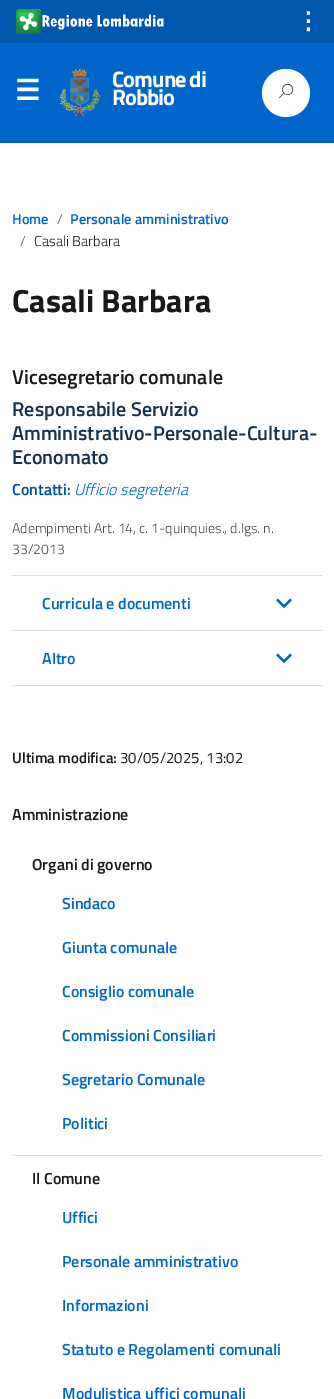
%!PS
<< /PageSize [334 1399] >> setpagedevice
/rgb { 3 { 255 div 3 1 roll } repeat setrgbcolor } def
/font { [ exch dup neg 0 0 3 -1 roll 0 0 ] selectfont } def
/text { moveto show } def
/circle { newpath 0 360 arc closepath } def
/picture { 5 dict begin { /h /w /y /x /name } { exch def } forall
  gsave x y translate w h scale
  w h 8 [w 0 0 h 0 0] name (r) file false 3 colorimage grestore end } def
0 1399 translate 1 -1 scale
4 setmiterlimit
255 255 255 rgb
0 0 334 1399 rectfill
0 102 204 rgb
0 43 334 100 rectfill
0 87 173 rgb
0 0 334 43 rectfill
(img_01.rgb) 16 9 148 25 picture
(img_02.rgb) 59 69 42 48 picture
255 255 255 rgb
286 93 24 circle fill
(img_03.rgb) 279 83 15 15 picture
221 221 221 rgb
12 575 310 1 rectfill
12 630 310 1 rectfill
(img_04.rgb) 276 598 16 11 picture
12 685 310 1 rectfill
(img_04.rgb) 276 653 16 11 picture
12 1155 310 1 rectfill
/DejaVuSans-Bold 24 font
255 255 255 rgb
(⋮) 296 29 text
/DejaVuSans-Bold 28 font
(☰) 15 100 text
/TitilliumWeb-Bold 22.5 font
112 87 moveto -1 0 (Comune di) ashow
112 105 moveto -1 0 (Robbio) ashow
/TitilliumWeb-SemiBold 14.4 font
0 102 204 rgb
(Home) 12 224 text
/TitilliumWeb-Light 14.4 font
101 101 102 rgb
(/) 57 224 text
/TitilliumWeb-SemiBold 14.4 font
0 102 204 rgb
(Personale amministrativo) 70 224 text
/TitilliumWeb-Light 14.4 font
101 101 102 rgb
(/) 20 246 text
25 25 26 rgb
(Casali Barbara) 34 246 text
/TitilliumWeb-Bold 32 font
(Casali Barbara) 12 312 text
/TitilliumWeb-SemiBold 20 font
(Vicesegretario comunale) 12 384 text
23 50 77 rgb
(Responsabile Servizio) 12 416 text
(Amministrativo-Personale-Cultura-) 12 440 text
(Economato) 12 464 text
/TitilliumWeb-SemiBold 16 font
0 77 153 rgb
(Contatti:) 12 495 text
/TitilliumWeb-LightItalic 16 font
0 102 204 rgb
(Ufficio segreteria) 74 495 text
/TitilliumWeb-Light 14 font
61 73 85 rgb
(Adempimenti Art. 14, c. 1-quinquies., d.lgs. n.) 12 533 text
(33/2013) 12 554 text
/TitilliumWeb-SemiBold 16 font
0 102 204 rgb
(Curricula e documenti) 42 609 text
(Altro) 42 664 text
/TitilliumWeb-SemiBold 15 font
25 25 26 rgb
(Ultima modifica:) 12 763 text
/TitilliumWeb-Regular 15 font
(30/05/2025, 13:02) 120 763 text
/TitilliumWeb-SemiBold 16 font
(Amministrazione) 12 820 text
(Organi di governo) 32 870 text
0 102 204 rgb
(Sindaco) 62 909 text
(Giunta comunale) 62 953 text
(Consiglio comunale) 62 997 text
(Commissioni Consiliari) 62 1041 text
(Segretario Comunale) 62 1085 text
(Politici) 62 1129 text
25 25 26 rgb
(Il Comune) 32 1184 text
0 102 204 rgb
(Uffici) 62 1223 text
(Personale amministrativo) 62 1267 text
(Informazioni) 62 1311 text
(Statuto e Regolamenti comunali) 62 1355 text
(Modulistica uffici comunali) 62 1399 text
showpage
